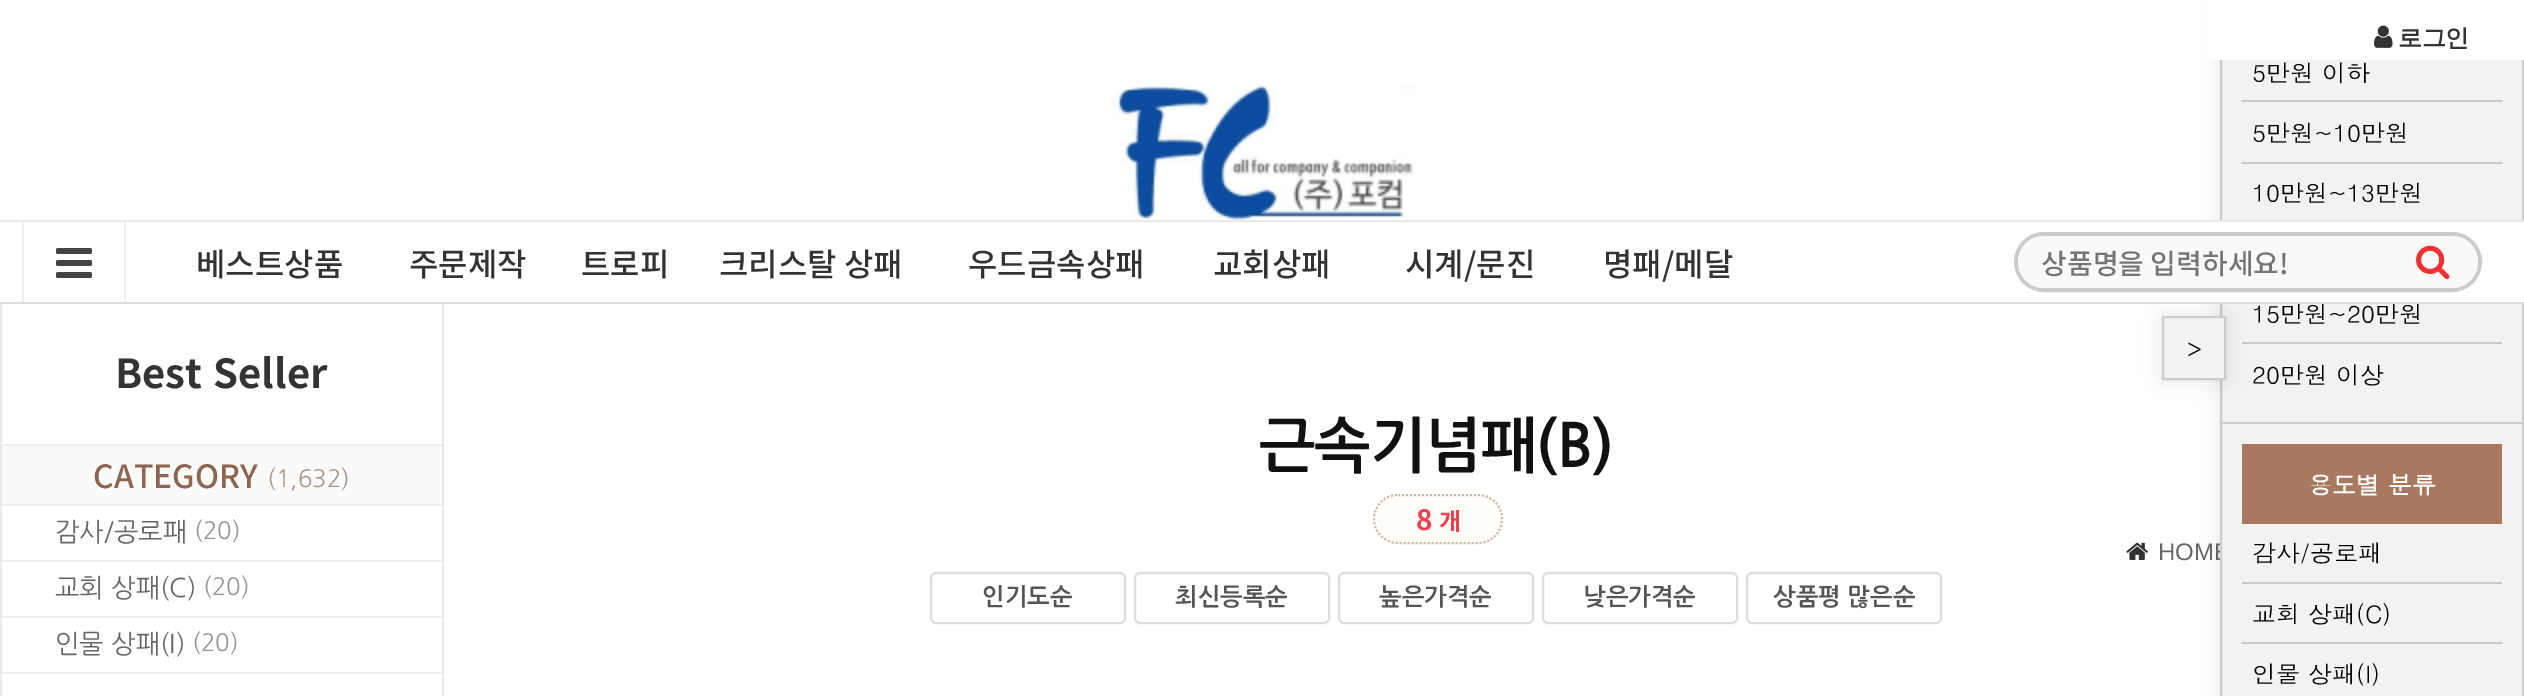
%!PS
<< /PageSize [2524 696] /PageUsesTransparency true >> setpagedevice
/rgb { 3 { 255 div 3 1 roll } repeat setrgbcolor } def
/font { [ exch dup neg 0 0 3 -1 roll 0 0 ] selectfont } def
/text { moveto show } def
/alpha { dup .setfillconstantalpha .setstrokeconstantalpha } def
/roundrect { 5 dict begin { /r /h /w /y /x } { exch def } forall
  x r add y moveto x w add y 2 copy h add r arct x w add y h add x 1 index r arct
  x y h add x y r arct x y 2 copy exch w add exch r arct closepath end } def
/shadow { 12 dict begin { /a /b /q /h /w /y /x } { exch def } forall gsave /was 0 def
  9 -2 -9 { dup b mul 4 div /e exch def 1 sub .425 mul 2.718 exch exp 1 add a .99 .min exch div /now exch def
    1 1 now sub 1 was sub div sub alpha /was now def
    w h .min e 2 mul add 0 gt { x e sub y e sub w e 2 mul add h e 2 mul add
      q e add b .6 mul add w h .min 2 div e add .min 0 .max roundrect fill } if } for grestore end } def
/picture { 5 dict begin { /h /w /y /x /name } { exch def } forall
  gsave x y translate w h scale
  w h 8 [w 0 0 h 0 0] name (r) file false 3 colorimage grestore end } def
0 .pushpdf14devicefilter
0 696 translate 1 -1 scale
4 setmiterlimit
255 255 255 rgb
0 0 2524 696 rectfill
(img_03.rgb) 2126 542 22 18 picture
0 0 0 rgb
2220 -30 304 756 0 10 0.1 shadow
255 253 249 rgb
1374 494 130 50 25 roundrect fill
213 184 160 rgb
2 setlinewidth
[2 2] 0 setdash
1398 495 moveto 80 0 rlineto 13.5 0 24 10.5 24 24 rcurveto 0 13.5 -10.5 24 -24 24 rcurveto -80 0 rlineto -13.5 0 -24 -10.5 -24 -24 rcurveto 0 -13.5 10.5 -24 24 -24 rcurveto closepath stroke
221 221 221 rgb
[] 0 setdash
931 573 194 50 5 roundrect stroke
1135 573 194 50 5 roundrect stroke
1339 573 194 50 5 roundrect stroke
1543 573 194 50 5 roundrect stroke
1747 573 194 50 5 roundrect stroke
(img_04.rgb) 1113 85 302 135 picture
232 232 232 rgb
442 300 2 396 rectfill
0 300 2 396 rectfill
250 250 250 rgb
2 446 440 58 rectfill
238 238 238 rgb
2 444 440 2 rectfill
2 504 440 2 rectfill
2 560 440 2 rectfill
2 616 440 2 rectfill
2 672 440 2 rectfill
/NanumGothic-Bold 60 font
17 17 17 rgb
1259 464 moveto -1 0 (근속기념패\(B\)) ashow
/LiberationSans-Regular 24 font
102 102 102 rgb
(HOME) 2158 560 text
242 242 242 rgb
2222 60 299 636 rectfill
204 204 204 rgb
2221 -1 302 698 rectstroke
255 255 255 rgb
2207 0 317 60 rectfill
/WenQuanYiZenHei-Bold 24 font
51 51 51 rgb
2398 46 moveto -0.5 0 (로그인) ashow
(img_01.rgb) 2374 25 19 23 picture
204 204 204 rgb
2222 422 300 2 rectfill
2242 100 260 2 rectfill
/Dotum-Regular 24 font
0 0 0 rgb
(5만원 이하) 2252 82 text
204 204 204 rgb
2242 162 260 2 rectfill
0 0 0 rgb
(5만원~10만원) 2252 142 text
(10만원~13만원) 2252 202 text
204 204 204 rgb
2242 342 260 2 rectfill
0 0 0 rgb
2162 316 64 64 0 10 0.1 shadow
242 242 242 rgb
2163 317 moveto 62 0 rlineto 0 62 rlineto -62 0 rlineto closepath gsave fill grestore
204 204 204 rgb
stroke
0 0 0 rgb
(>) 2187 358 text
(15만원~20만원) 2252 323 text
(20만원 이상) 2252 384 text
168 121 95 rgb
2242 444 260 80 rectfill
/Dotum-Bold 24 font
255 255 255 rgb
(용도별 분류) 2308 494 text
204 204 204 rgb
2242 582 260 2 rectfill
/Dotum-Regular 24 font
0 0 0 rgb
(감사/공로패) 2252 562 text
204 204 204 rgb
2242 642 260 2 rectfill
0 0 0 rgb
(교회 상패\(C\)) 2252 623 text
(인물 상패\(I\)) 2252 683 text
/NotoSansKR-Bold 28 font
240 64 76 rgb
(8) 1416 530 text
/NotoSansKR-Bold 24 font
(개) 1439 530 text
/NanumGothic-Bold 24 font
85 85 85 rgb
(인기도순) 982 604 text
(최신등록순) 1175 604 text
(높은가격순) 1379 604 text
(낮은가격순) 1583 604 text
(상품평 많은순) 1773 604 text
255 255 255 rgb
0 222 2524 80 rectfill
204 204 204 rgb
4 setlinewidth
2016 234 464 56 28 roundrect stroke
249 249 249 rgb
2386 236 moveto 66 0 rlineto 14.5 0 26 11.5 26 26 rcurveto 0 14.5 -11.5 26 -26 26 rcurveto -66 0 rlineto closepath fill
(img_02.rgb) 2416 245 34 35 picture
2044 236 moveto 342 0 rlineto 0 52 rlineto -342 0 rlineto -14.5 0 -26 -11.5 -26 -26 rcurveto 0 -14.5 11.5 -26 26 -26 rcurveto closepath fill
/NotoSansKR-Medium 28 font
117 117 117 rgb
(상품명을 입력하세요!) 2041 274 text
232 232 232 rgb
0 220 2524 2 rectfill
221 221 221 rgb
0 302 2524 2 rectfill
238 238 238 rgb
124 222 2 80 rectfill
22 222 2 80 rectfill
(img_05.rgb) 56 248 36 30 picture
/NotoSansKR-Medium 32 font
51 51 51 rgb
(베스트상품) 196 276 text
(주문제작) 409 276 text
(트로피) 581 276 text
(크리스탈 상패) 719 276 text
(우드금속상패) 968 276 text
(교회상패) 1213 276 text
(시계/문진) 1405 276 text
(명패/메달) 1603 276 text
/NotoSansKR-Bold 40 font
115 388 moveto 2 0 32 (Best Seller) widthshow
/NotoSansKR-Medium 32 font
142 102 80 rgb
(CATEGORY) 93 488 text
/NanumGothic-Regular 24 font
174 146 131 rgb
(\(1,632\)) 267 486 text
/NanumGothic-Regular 26 font
102 102 102 rgb
(감사/공로패) 55 540 text
/NanumGothic-Regular 24 font
148 148 148 rgb
(\(20\)) 194 538 text
/NanumGothic-Regular 26 font
102 102 102 rgb
(교회 상패\(C\)) 55 596 text
/NanumGothic-Regular 24 font
148 148 148 rgb
(\(20\)) 203 594 text
/NanumGothic-Regular 26 font
102 102 102 rgb
(인물 상패\(I\)) 55 652 text
/NanumGothic-Regular 24 font
148 148 148 rgb
(\(20\)) 192 650 text
.poppdf14devicefilter showpage
